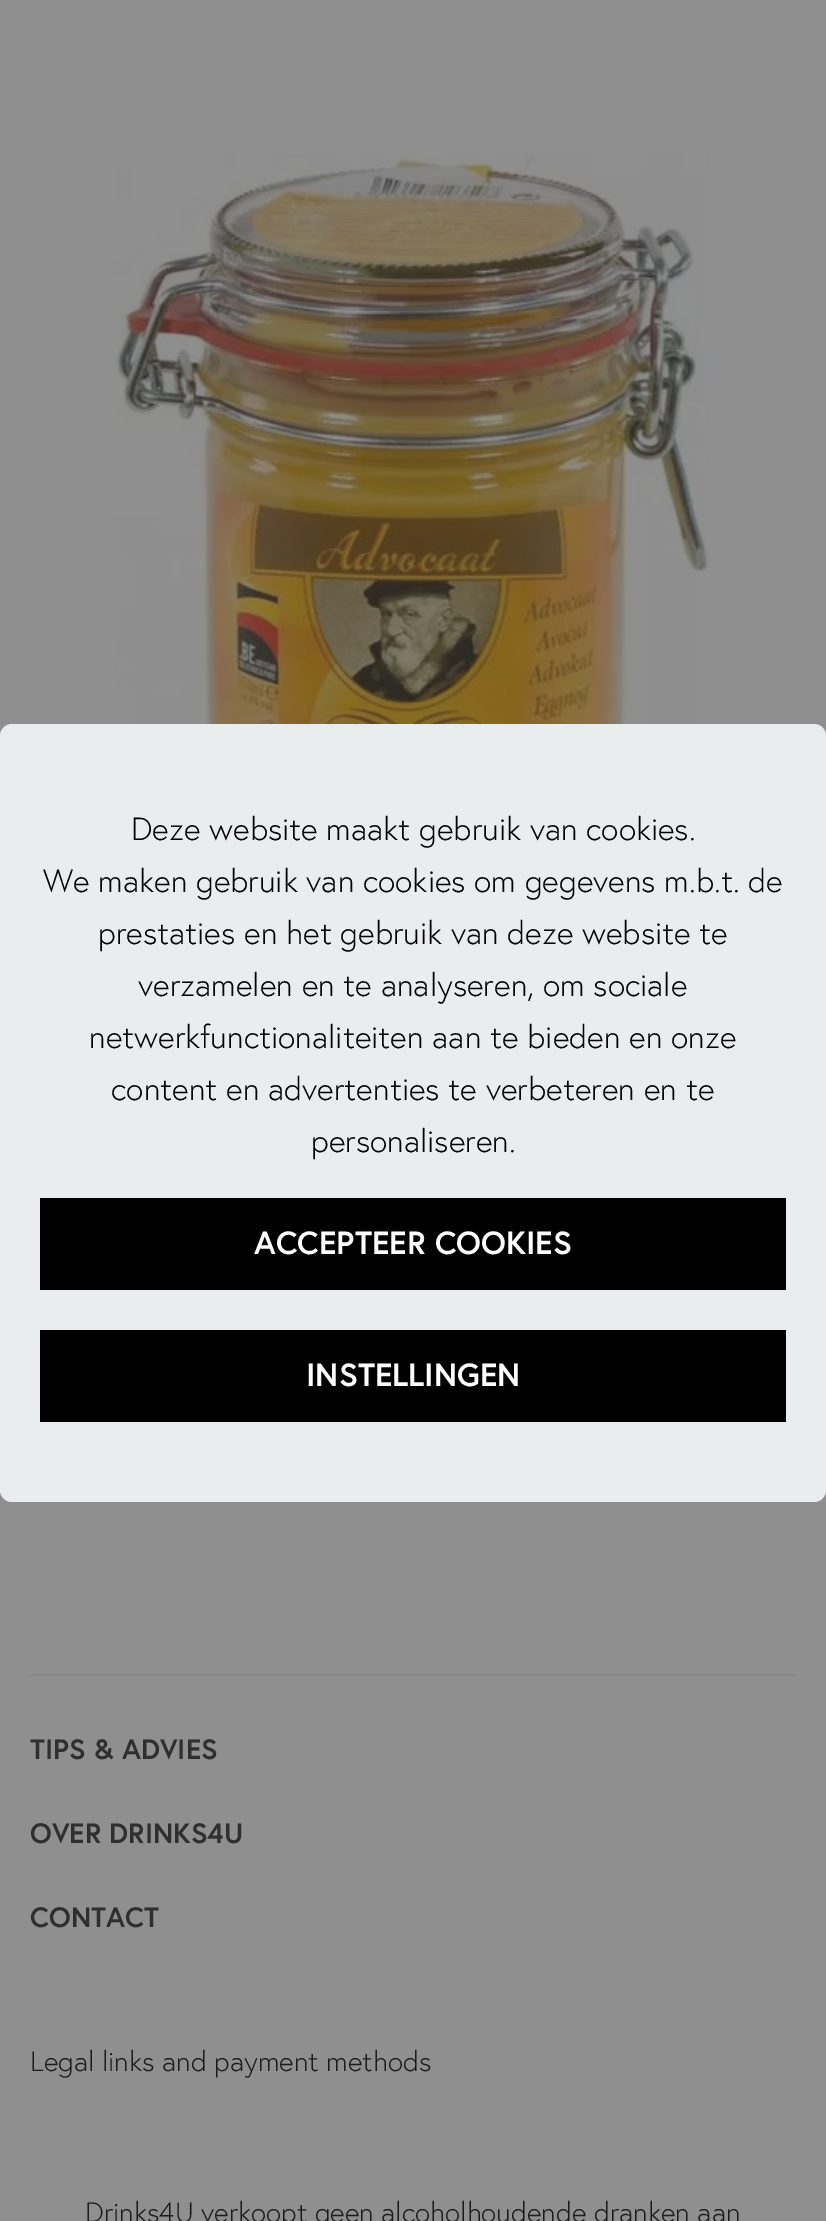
%!PS
<< /PageSize [826 2221] >> setpagedevice
/rgb { 3 { 255 div 3 1 roll } repeat setrgbcolor } def
/font { [ exch dup neg 0 0 3 -1 roll 0 0 ] selectfont } def
/text { moveto show } def
/roundrect { 5 dict begin { /r /h /w /y /x } { exch def } forall
  x r add y moveto x w add y 2 copy h add r arct x w add y h add x 1 index r arct
  x y h add x y r arct x y 2 copy exch w add exch r arct closepath end } def
/picture { 5 dict begin { /h /w /y /x /name } { exch def } forall
  gsave x y translate w h scale
  w h 8 [w 0 0 h 0 0] name (r) file false 3 colorimage grestore end } def
0 2221 translate 1 -1 scale
4 setmiterlimit
143 143 143 rgb
0 0 826 2221 rectfill
(img_01.rgb) 115 153 594 571 picture
234 237 237 rgb
0 724 826 778 12 roundrect fill
0 0 0 rgb
40 1198 746 92 rectfill
40 1330 746 92 rectfill
133 135 135 rgb
30 1674 766 2 rectfill
/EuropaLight-Light 32 font
0 0 0 rgb
(Deze website maakt gebruik van cookies.) 131 840 text
(We maken gebruik van cookies om gegevens m.b.t. de) 43 892 text
(prestaties en het gebruik van deze website te) 98 944 text
(verzamelen en te analyseren, om sociale) 138 996 text
(netwerkfunctionaliteiten aan te bieden en onze) 89 1048 text
(content en advertenties te verbeteren en te) 111 1100 text
(personaliseren.) 311 1152 text
/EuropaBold-Bold 32 font
255 255 255 rgb
(ACCEPTEER COOKIES) 254 1254 text
(INSTELLINGEN) 306 1386 text
/EuropaBold-Bold 28 font
47 47 47 rgb
(TIPS & ADVIES) 30 1759 text
(OVER DRINKS4U) 30 1843 text
(CONTACT) 30 1927 text
/EuropaLight-Light 28 font
28 28 28 rgb
(Legal links and payment methods) 30 2071 text
(Drinks4U verkoopt geen alcoholhoudende dranken aan) 85 2222 text
showpage
